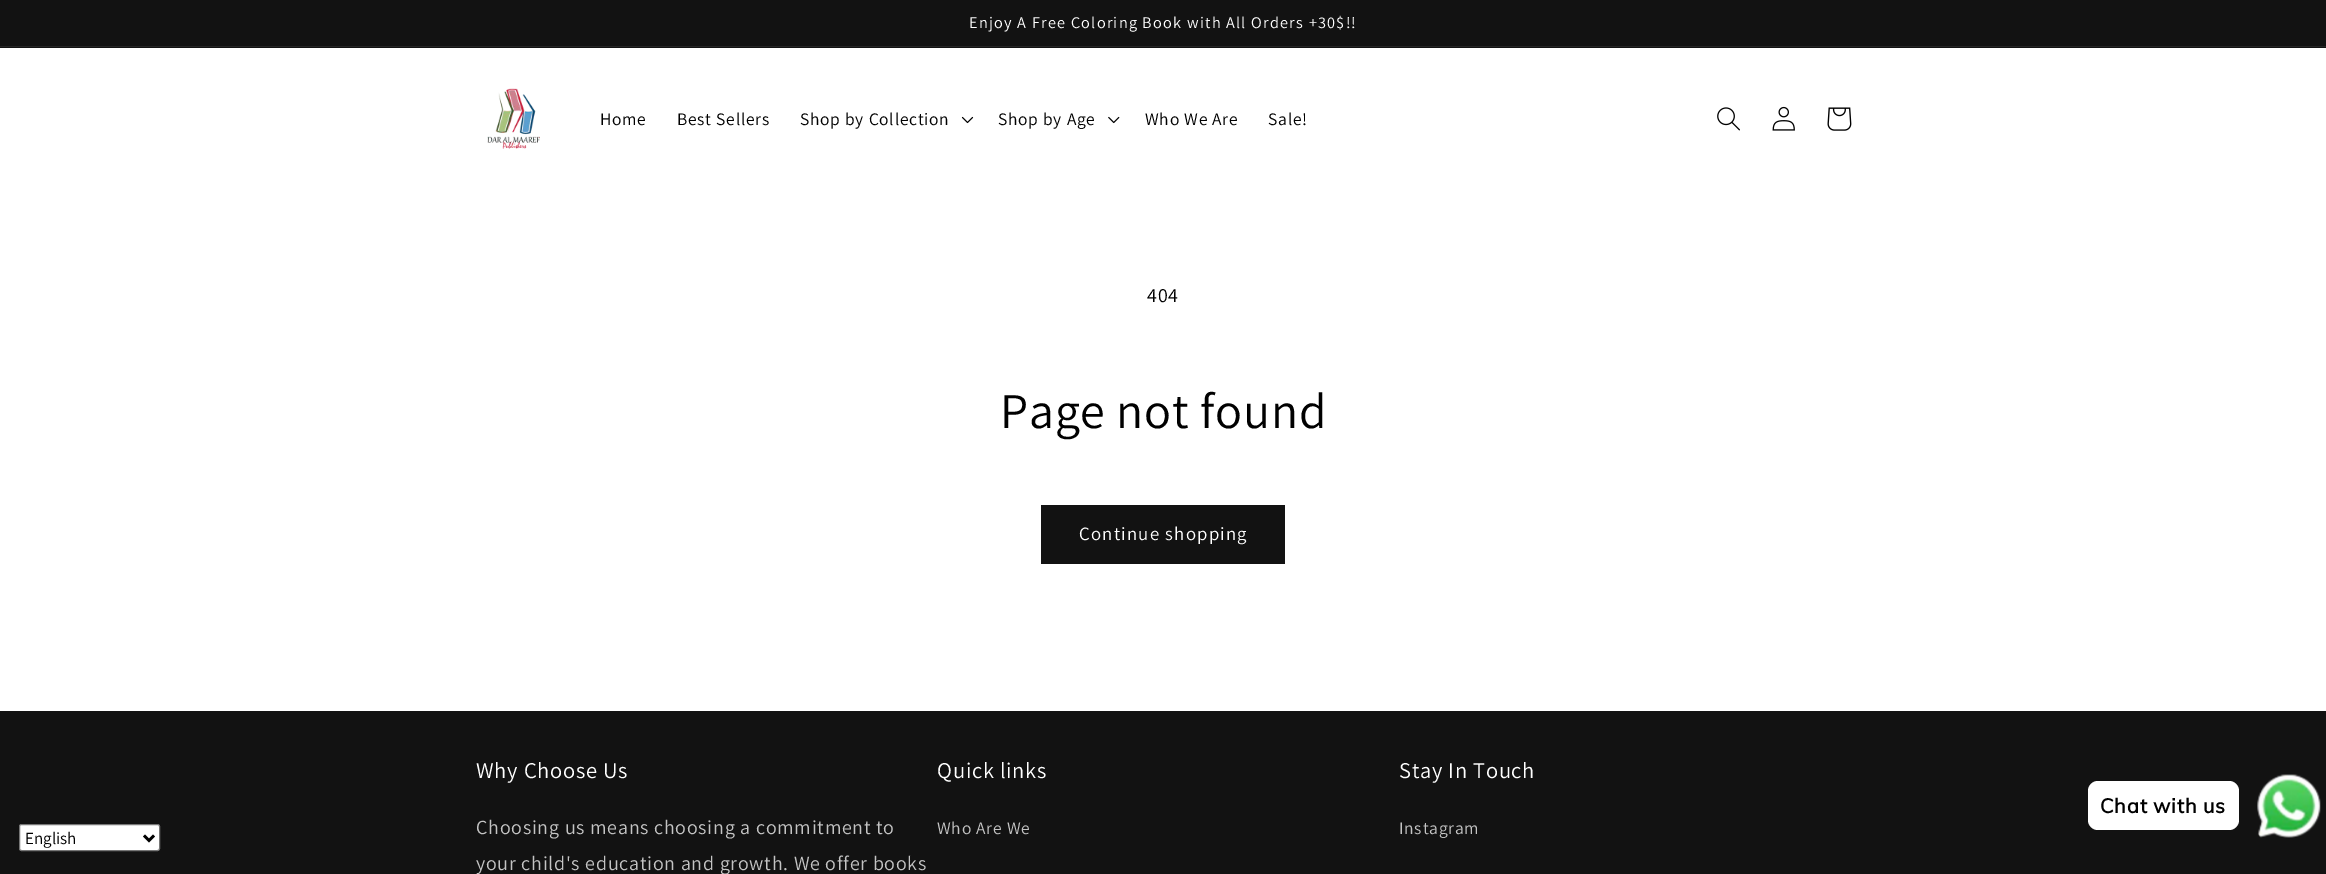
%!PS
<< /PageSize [2326 874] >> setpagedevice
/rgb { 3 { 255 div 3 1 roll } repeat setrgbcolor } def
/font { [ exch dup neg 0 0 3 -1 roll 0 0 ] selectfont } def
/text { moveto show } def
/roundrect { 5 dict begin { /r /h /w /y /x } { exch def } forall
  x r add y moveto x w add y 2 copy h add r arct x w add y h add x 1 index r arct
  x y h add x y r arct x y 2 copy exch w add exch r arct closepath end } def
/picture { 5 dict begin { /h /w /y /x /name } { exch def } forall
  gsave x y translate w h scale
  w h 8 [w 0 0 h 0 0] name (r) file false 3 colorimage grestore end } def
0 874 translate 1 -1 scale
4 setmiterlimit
255 255 255 rgb
0 0 2326 874 rectfill
18 18 18 rgb
0 0 2326 48 rectfill
37 37 37 rgb
0 46 2326 1 rectfill
(img_01.rgb) 487 88 53 61 picture
(img_02.rgb) 961 116 13 8 picture
(img_03.rgb) 1108 116 12 8 picture
(img_04.rgb) 1717 107 23 24 picture
(img_05.rgb) 1772 106 23 25 picture
(img_06.rgb) 1827 107 25 24 picture
18 18 18 rgb
1041 505 244 59 rectfill
0 711 2326 163 rectfill
(img_07.rgb) 2257 774 64 64 picture
255 255 255 rgb
2088 781 151 49 10 roundrect fill
19.5 824.5 140 26 2 roundrect gsave fill grestore
118 118 118 rgb
stroke
0 0 0 rgb
2.5 setlinewidth
144 835.5 moveto 5 5 rlineto 5 -5 rlineto stroke
/Assistant-Regular 16.25 font
255 255 255 rgb
969 28 moveto 1.25 0 (Enjoy A Free Coloring Book with All Orders +30$!!) ashow
/Assistant-Regular 17.5 font
0 0 0 rgb
600 125 moveto 0.75 0 (Home) ashow
677 125 moveto 0.75 0 (Best Sellers) ashow
800 125 moveto 0.75 0 (Shop by Collection) ashow
998 125 moveto 0.75 0 (Shop by Age) ashow
1145 125 moveto 0.75 0 (Who We Are) ashow
1268 125 moveto 0.75 0 (Sale!) ashow
/Assistant-Regular 20 font
1147 302 moveto 0.75 0 (404) ashow
/Assistant-Regular 50 font
1000 428 moveto 0.75 0 (Page not found) ashow
/Assistant-Regular 18.75 font
255 255 255 rgb
1079 540 moveto 1.25 0 (Continue shopping) ashow
/Assistant-Regular 22.5 font
476 778 moveto 0.75 0 (Why Choose Us) ashow
/Assistant-Regular 20 font
196 196 196 rgb
476 834 moveto 0.75 0 (Choosing us means choosing a commitment to) ashow
476 870 moveto 0.75 0 (your child's education and growth. We offer books) ashow
/Assistant-Regular 22.5 font
255 255 255 rgb
937 778 moveto 0.75 0 (Quick links) ashow
/Assistant-Regular 17.5 font
196 196 196 rgb
937 834 moveto 0.75 0 (Who Are We) ashow
/Assistant-Regular 22.5 font
255 255 255 rgb
1399 778 moveto 0.75 0 (Stay In Touch) ashow
/Assistant-Regular 17.5 font
196 196 196 rgb
1399 834 moveto 0.75 0 (Instagram) ashow
/Muli-Bold 20 font
0 0 0 rgb
2100 813 moveto 0.75 0 (Chat with us) ashow
/Assistant-Regular 17 font
(English) 25 844 text
showpage
